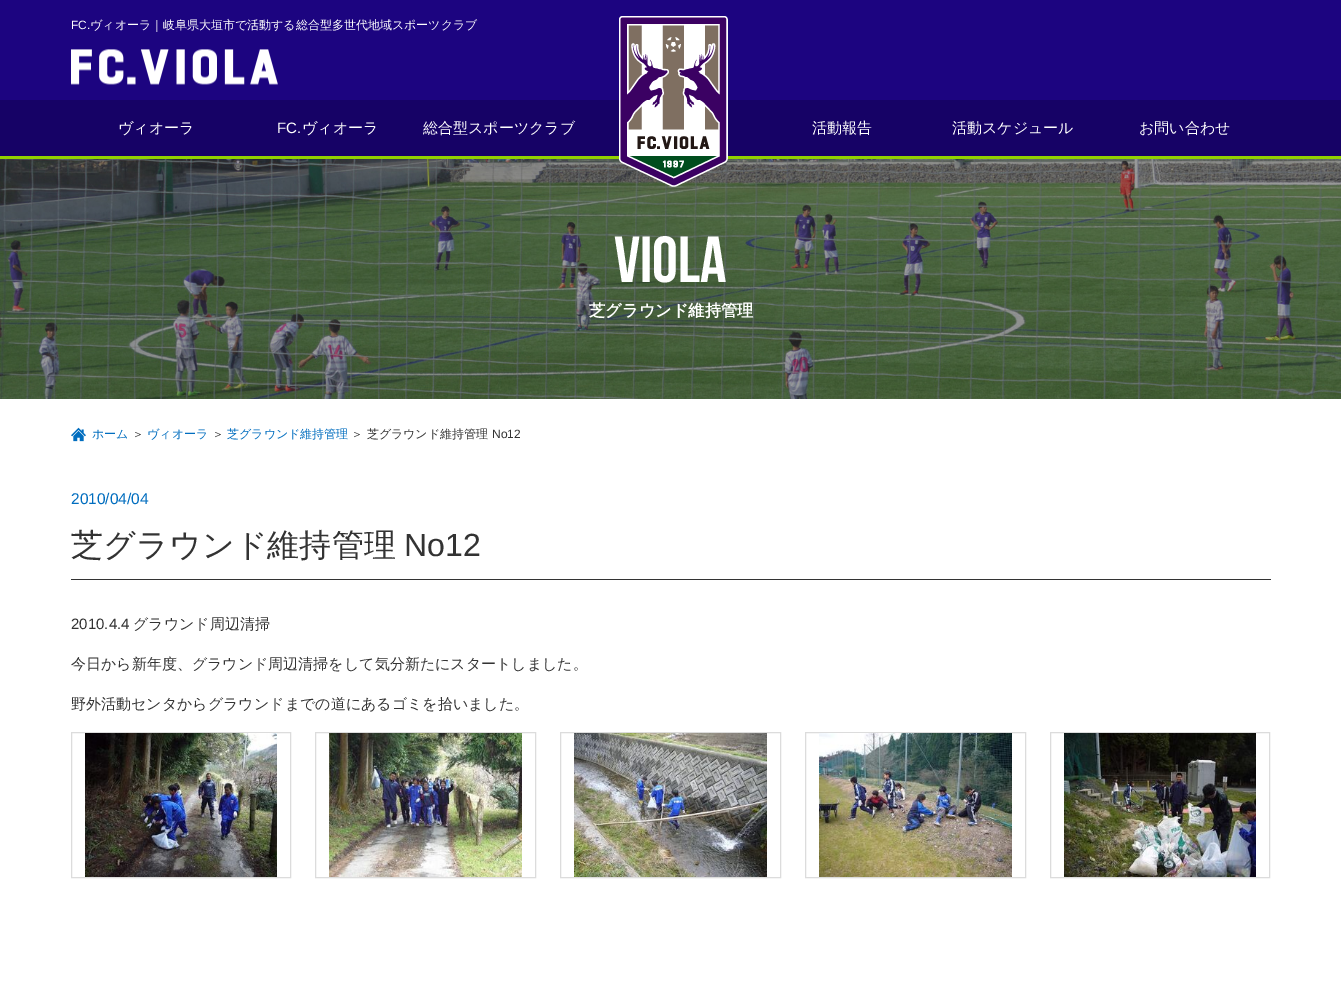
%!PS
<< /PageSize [1341 992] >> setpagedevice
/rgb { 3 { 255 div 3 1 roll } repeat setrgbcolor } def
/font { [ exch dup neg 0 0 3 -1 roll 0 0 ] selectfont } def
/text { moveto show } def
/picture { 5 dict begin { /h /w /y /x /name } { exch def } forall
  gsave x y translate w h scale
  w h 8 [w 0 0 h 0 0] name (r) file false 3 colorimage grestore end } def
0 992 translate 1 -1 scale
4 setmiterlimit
255 255 255 rgb
0 0 1341 992 rectfill
28 4 128 rgb
0 0 1341 100 rectfill
146 209 0 rgb
0 156 1341 3 rectfill
(img_01.rgb) 71 49 207 36 picture
22 2 102 rgb
0 100 1341 56 rectfill
(img_03.rgb) 0 159 1341 240 picture
(img_02.rgb) 619 16 109 171 picture
(img_04.rgb) 71 427 15 15 picture
51 51 51 rgb
71 579 1200 1 rectfill
220 220 220 rgb
71.5 732.5 219 145 rectstroke
(img_05.rgb) 85 733 192 144 picture
315.5 732.5 220 145 rectstroke
(img_06.rgb) 329 733 193 144 picture
560.5 732.5 220 145 rectstroke
(img_07.rgb) 574 733 193 144 picture
805.5 732.5 220 145 rectstroke
(img_08.rgb) 819 733 193 144 picture
1050.5 732.5 219 145 rectstroke
(img_09.rgb) 1064 733 192 144 picture
/LiberationSans-Regular 12 font
255 255 255 rgb
(FC.) 71 29 text
/WenQuanYiZenHei-Medium 12 font
(ヴィオーラ｜岐阜県大垣市で活動する総合型多世代地域スポーツクラブ) 90 29 text
/WenQuanYiZenHei-Medium 15 font
(ヴィオーラ) 118 133 text
/LiberationSans-Regular 15 font
(FC.) 277 133 text
/WenQuanYiZenHei-Medium 15 font
(ヴィオーラ) 302 133 text
(総合型スポーツクラブ) 423 133 text
(活動報告) 812 133 text
(活動スケジュール) 952 133 text
(お問い合わせ) 1139 133 text
/BebasNeue-Bold 65 font
(VIOLA) 614 282 text
/WenQuanYiZenHei-Bold 16.25 font
(芝グラウンド維持管理) 589 316 text
/WenQuanYiZenHei-Medium 12 font
0 109 191 rgb
(ホーム) 92 438 text
51 51 51 rgb
(＞) 132 438 text
0 109 191 rgb
(ヴィオーラ) 147 438 text
51 51 51 rgb
(＞) 212 438 text
0 109 191 rgb
(芝グラウンド維持管理) 227 438 text
51 51 51 rgb
(＞ 芝グラウンド維持管理) 351 438 text
/LiberationSans-Regular 12 font
(No12) 492 438 text
/LiberationSans-Regular 15.5 font
0 109 191 rgb
(2010/04/04) 71 504 text
/WenQuanYiZenHei-Medium 32.1 font
51 51 51 rgb
(芝グラウンド維持管理) 71 556 text
/LiberationSans-Regular 32.1 font
(No12) 404 556 text
/LiberationSans-Regular 15 font
(2010.4.4) 71 629 text
/WenQuanYiZenHei-Medium 15 font
(グラウンド周辺清掃) 133 629 text
(今日から新年度、グラウンド周辺清掃をして気分新たにスタートしました。) 71 669 text
(野外活動センタからグラウンドまでの道にあるゴミを拾いました。) 71 709 text
showpage
